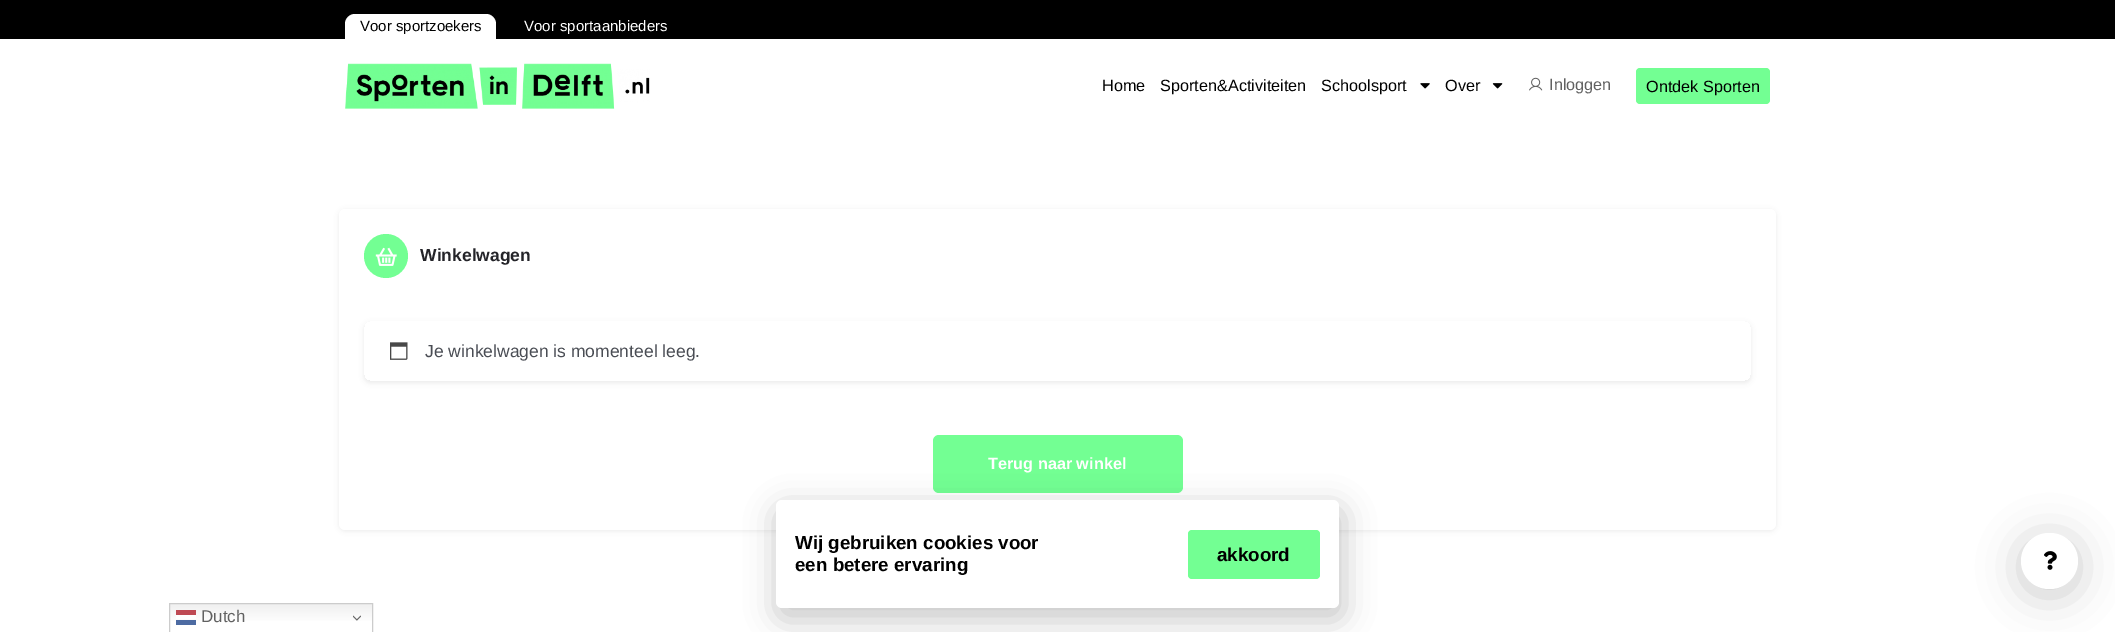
%!PS
<< /PageSize [2115 632] /PageUsesTransparency true >> setpagedevice
/rgb { 3 { 255 div 3 1 roll } repeat setrgbcolor } def
/font { [ exch dup neg 0 0 3 -1 roll 0 0 ] selectfont } def
/text { moveto show } def
/alpha { dup .setfillconstantalpha .setstrokeconstantalpha } def
/circle { newpath 0 360 arc closepath } def
/roundrect { 5 dict begin { /r /h /w /y /x } { exch def } forall
  x r add y moveto x w add y 2 copy h add r arct x w add y h add x 1 index r arct
  x y h add x y r arct x y 2 copy exch w add exch r arct closepath end } def
/shadow { 12 dict begin { /a /b /q /h /w /y /x } { exch def } forall gsave /was 0 def
  9 -2 -9 { dup b mul 4 div /e exch def 1 sub .425 mul 2.718 exch exp 1 add a .99 .min exch div /now exch def
    1 1 now sub 1 was sub div sub alpha /was now def
    w h .min e 2 mul add 0 gt { x e sub y e sub w e 2 mul add h e 2 mul add
      q e add b .6 mul add w h .min 2 div e add .min 0 .max roundrect fill } if } for grestore end } def
/picture { 5 dict begin { /h /w /y /x /name } { exch def } forall
  gsave x y translate w h scale
  w h 8 [w 0 0 h 0 0] name (r) file false 3 colorimage grestore end } def
0 .pushpdf14devicefilter
0 632 translate 1 -1 scale
4 setmiterlimit
255 255 255 rgb
0 0 2115 632 rectfill
0 0 0 rgb
0 0 2115 39 rectfill
255 255 255 rgb
355 14 moveto 131 0 rlineto 5.5 0 10 4.5 10 10 rcurveto 0 15 rlineto -151 0 rlineto 0 -15 rlineto 0 -5.5 4.5 -10 10 -10 rcurveto closepath fill
(img_01.rgb) 345 63 305 46 picture
(img_02.rgb) 1420 83 10 6 picture
(img_03.rgb) 1492 83 11 6 picture
(img_04.rgb) 1529 77 14 14 picture
115 255 147 rgb
1636 68 134 36 4 roundrect fill
0 0 0 rgb
2021 539 57 56 28 20.5 0.2 shadow
255 255 255 rgb
2021 533 57 56 28 roundrect fill
(img_05.rgb) 2044 551 13 19 picture
0 0 0 rgb
339 210 1437 321 6 2.5 0.07 shadow
255 255 255 rgb
339 209 1437 321 6 roundrect fill
115 255 147 rgb
386 256 22 circle fill
(img_06.rgb) 375 247 22 19 picture
gsave
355 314 moveto 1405 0 rlineto 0 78 rlineto -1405 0 rlineto closepath 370 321 moveto 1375 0 rlineto 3.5 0 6 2.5 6 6 rcurveto 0 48 rlineto 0 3.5 -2.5 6 -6 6 rcurveto -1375 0 rlineto -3.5 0 -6 -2.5 -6 -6 rcurveto 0 -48 rlineto 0 -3.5 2.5 -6 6 -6 rcurveto closepath eoclip newpath
0 0 0 rgb
364 323 1387 60 6 2.5 0.07 shadow
grestore
(img_07.rgb) 390 342 18 18 picture
933 435 250 58 6 roundrect fill
0 0 0 rgb
775 506 570 115 10 14.5 0.2 shadow
255 255 255 rgb
776 500 563 108 6 roundrect fill
115 255 147 rgb
1188 530 132 49 4 roundrect fill
gsave 170 604 moveto 202 0 rlineto 0 17 rlineto -202 0 rlineto closepath clip newpath
<< /ShadingType 2 /ColorSpace /DeviceRGB /Coords [271 603 271 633] /Extend [true true] /Function << /FunctionType 3 /Domain [0 1] /Functions [<< /FunctionType 2 /Domain [0 1] /C0 [0.937 0.937 0.937] /C1 [1 1 1] /N 1 >> << /FunctionType 2 /Domain [0 1] /C0 [1 1 1] /C1 [1 1 1] /N 1 >>] /Bounds [0.7] /Encode [0 1 0 1] >> >> shfill grestore
gsave 176 615 moveto 20 0 rlineto 0 4 rlineto -20 0 rlineto closepath clip newpath
<< /ShadingType 2 /ColorSpace /DeviceRGB /Coords [271 603 271 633] /Extend [true true] /Function << /FunctionType 3 /Domain [0 1] /Functions [<< /FunctionType 2 /Domain [0 1] /C0 [0.988 0.988 0.988] /C1 [1 1 1] /N 1 >> << /FunctionType 2 /Domain [0 1] /C0 [1 1 1] /C1 [1 1 1] /N 1 >>] /Bounds [0.7] /Encode [0 1 0 1] >> >> shfill grestore
204 204 204 rgb
169.5 603.5 203 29 rectstroke
190 73 83 rgb
176 610 20 5 rectfill
(img_08.rgb) 353 615 8 6 picture
77 107 162 rgb
176 620 20 5 rectfill
/LiberationSans-Regular 15 font
0 0 0 rgb
(Voor sportzoekers) 360 31 text
255 255 255 rgb
(Voor sportaanbieders) 524 31 text
/LiberationSans-Regular 16.25 font
0 0 0 rgb
(Home) 1102 91 text
(Sporten&Activiteiten) 1160 91 text
(Schoolsport) 1321 91 text
(Over) 1445 91 text
97 97 97 rgb
(Inloggen) 1549 90 text
0 0 0 rgb
(Ontdek Sporten) 1646 92 text
/LiberationSans-Bold 17.5 font
36 36 41 rgb
(Winkelwagen) 420 261 text
/LiberationSans-Regular 17.5 font
74 77 84 rgb
(Je winkelwagen is momenteel leeg.) 425 357 text
/LiberationSans-Bold 16.25 font
255 255 255 rgb
(Terug naar winkel) 988 469 text
/LiberationSans-Bold 18.75 font
0 0 0 rgb
(Wij gebruiken cookies voor) 795 549 text
(een betere ervaring) 795 571 text
(akkoord) 1217 561 text
/LiberationSans-Regular 17 font
97 97 97 rgb
(Dutch) 201 622 text
.poppdf14devicefilter showpage
